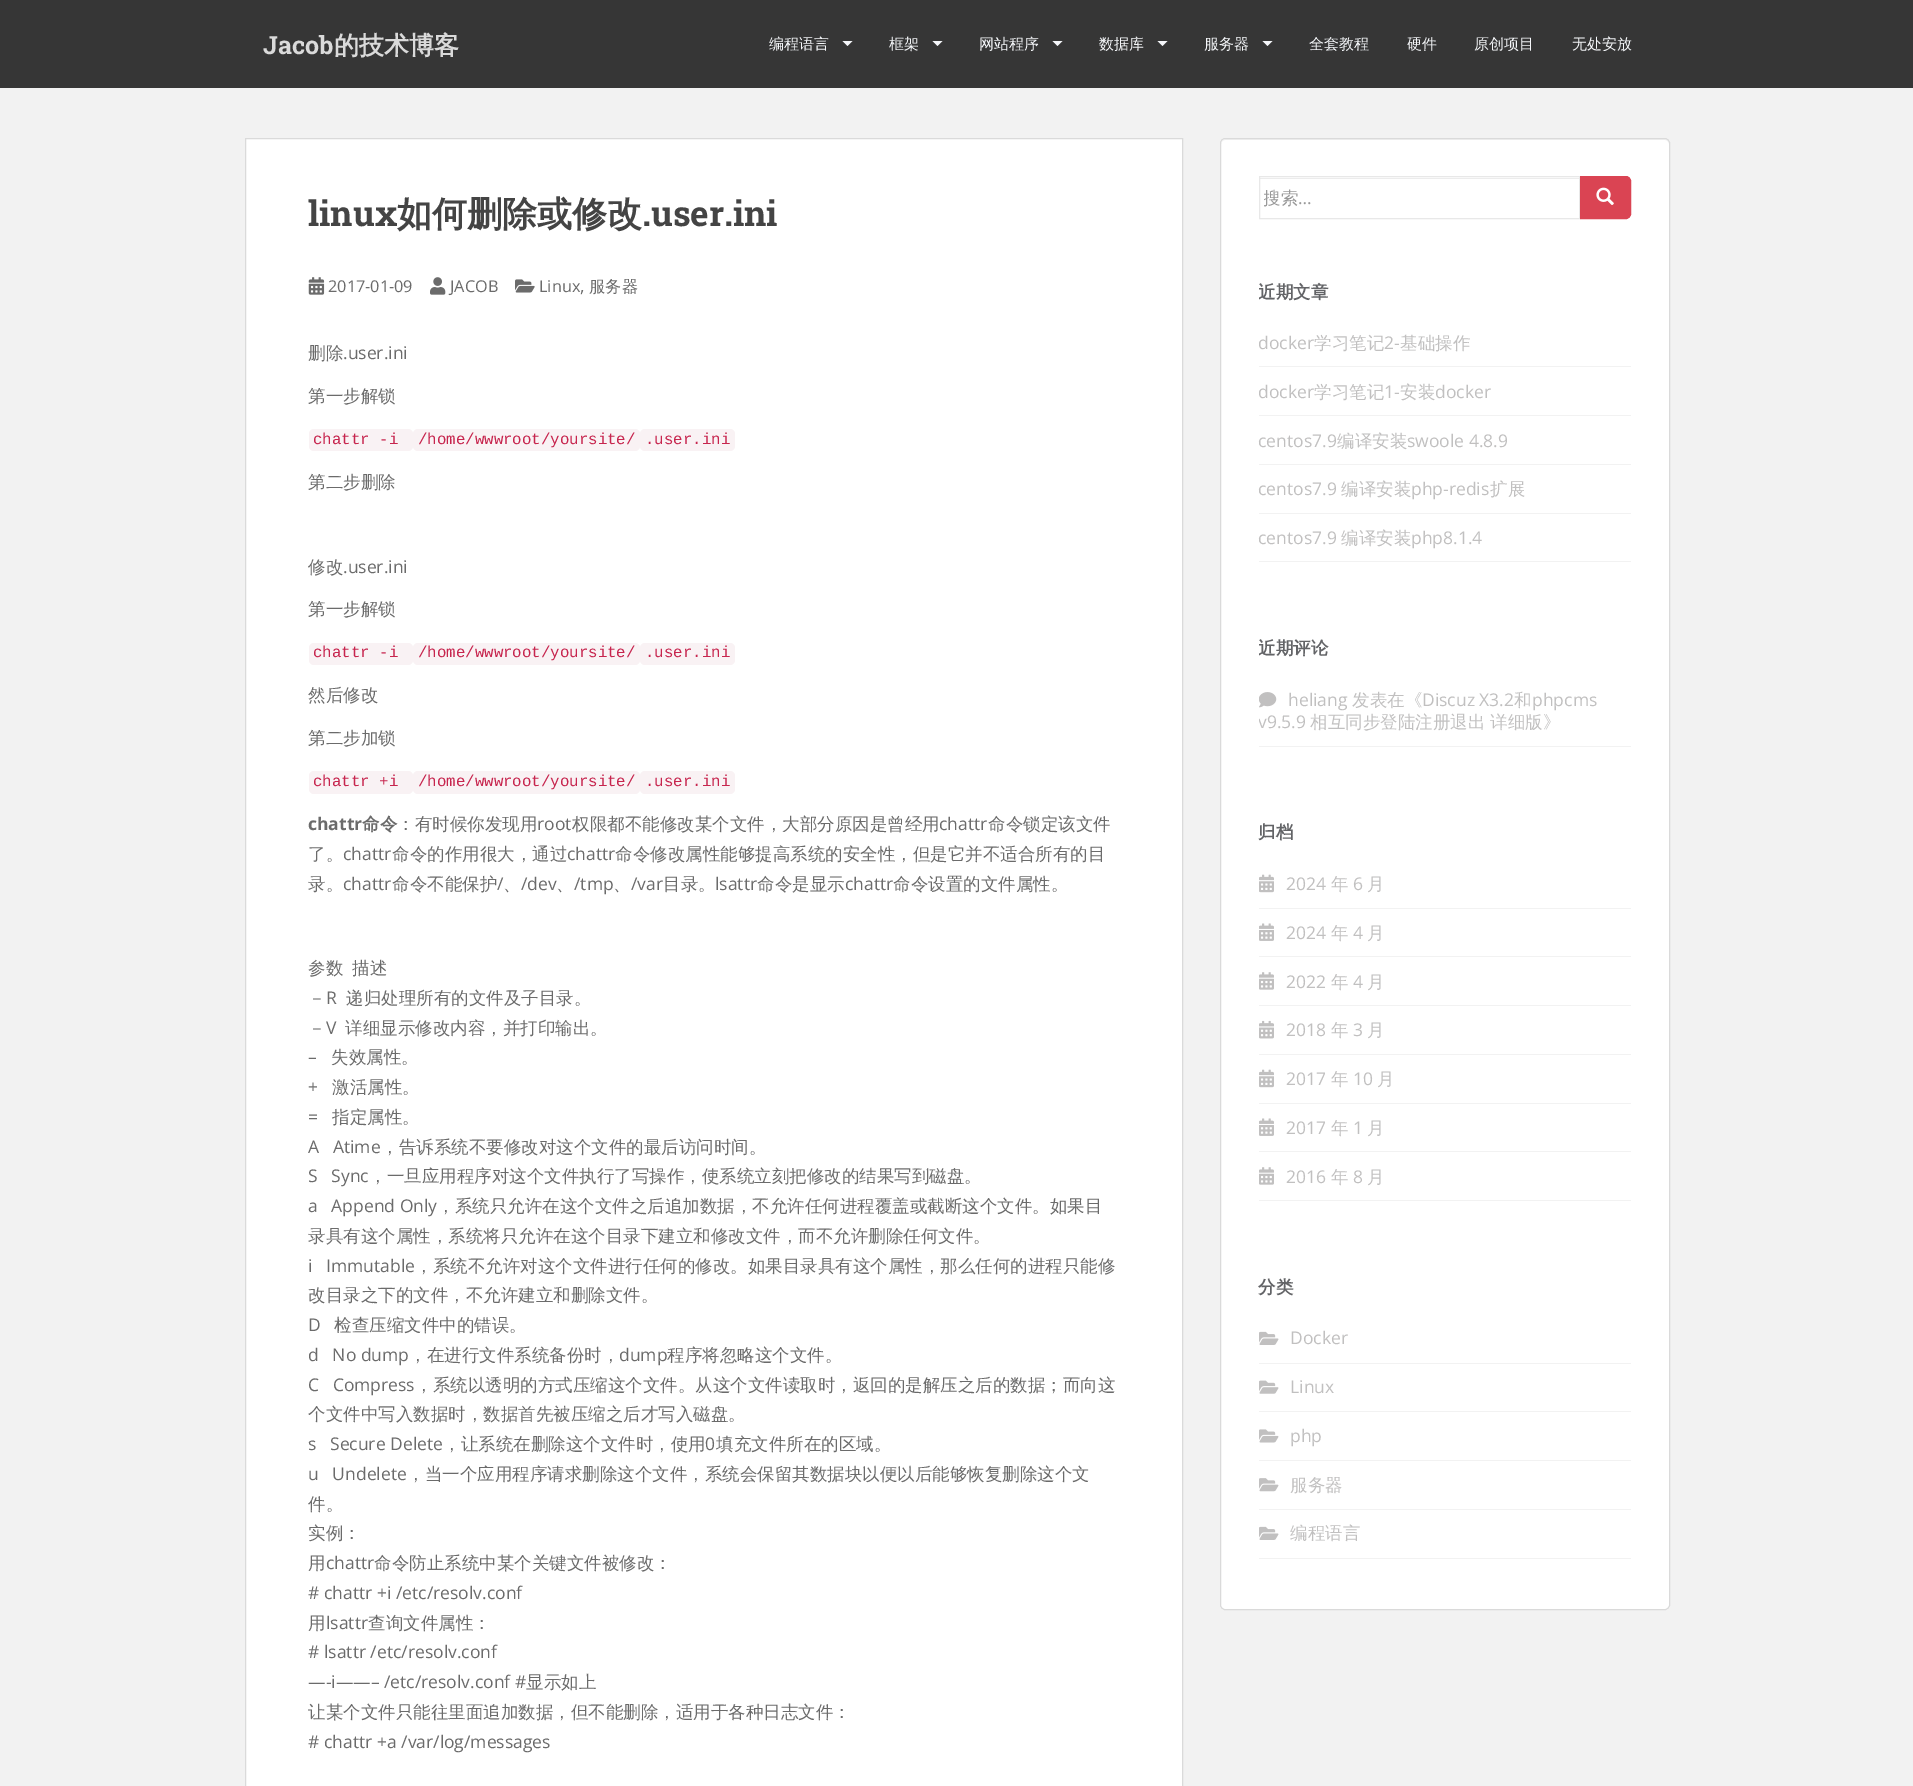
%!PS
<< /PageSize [1913 1786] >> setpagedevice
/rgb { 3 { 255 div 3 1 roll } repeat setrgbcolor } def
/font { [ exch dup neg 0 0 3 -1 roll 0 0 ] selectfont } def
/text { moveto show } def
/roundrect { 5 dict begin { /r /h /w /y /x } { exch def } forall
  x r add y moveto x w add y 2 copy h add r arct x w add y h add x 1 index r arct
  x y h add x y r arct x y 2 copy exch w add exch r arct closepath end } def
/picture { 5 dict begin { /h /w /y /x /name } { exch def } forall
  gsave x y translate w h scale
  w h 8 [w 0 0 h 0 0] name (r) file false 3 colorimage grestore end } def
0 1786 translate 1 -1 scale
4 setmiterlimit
242 242 242 rgb
0 0 1913 1786 rectfill
54 54 54 rgb
0 0 1913 88 rectfill
245 247 250 rgb
842.5 41 moveto 10 0 rlineto -5 5 rlineto closepath fill
932.5 41 moveto 10 0 rlineto -5 5 rlineto closepath fill
1052.5 41 moveto 10 0 rlineto -5 5 rlineto closepath fill
1157.5 41 moveto 10 0 rlineto -5 5 rlineto closepath fill
1262.5 41 moveto 10 0 rlineto -5 5 rlineto closepath fill
255 255 255 rgb
245.5 138.5 moveto 937 0 rlineto 0 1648 rlineto -937 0 rlineto closepath gsave fill grestore
218 218 218 rgb
stroke
(img_01.rgb) 308 277 17 18 picture
(img_02.rgb) 430 277 16 18 picture
(img_03.rgb) 515 279 20 14 picture
249 242 244 rgb
309 429 104 22 5 roundrect fill
413 429 227 22 5 roundrect fill
640 429 95 22 5 roundrect fill
309 643 104 22 5 roundrect fill
413 643 227 22 5 roundrect fill
640 643 95 22 5 roundrect fill
309 771 104 23 5 roundrect fill
413 771 227 23 5 roundrect fill
640 771 95 23 5 roundrect fill
255 255 255 rgb
1220 138 450 1472 5 roundrect fill
242 242 242 rgb
1225 140 moveto 440 0 rlineto 2 0 4 2 4 4 rcurveto 0 -3 -1 -5 -4 -5 rcurveto -440 0 rlineto -2 1 rlineto -1 1 rlineto -1 3 rlineto 0 -2 2 -4 4 -4 rcurveto closepath fill
218 218 218 rgb
1220.5 138.5 449 1471 4.5 roundrect stroke
236 236 236 rgb
1260 178 319 1 rectfill
232 232 232 rgb
1259.5 176.5 320 42 rectstroke
218 68 83 rgb
1580.5 176.5 moveto 45.5 0 rlineto 2.5 0 4.5 2 4.5 4.5 rcurveto 0 33 rlineto 0 2.5 -2 4.5 -4.5 4.5 rcurveto -45.5 0 rlineto closepath gsave fill grestore
stroke
(img_04.rgb) 1596 187 18 18 picture
242 242 242 rgb
1259 366 372 1 rectfill
1259 415 372 1 rectfill
1259 464 372 1 rectfill
1259 513 372 1 rectfill
1259 561 372 1 rectfill
1259 746 372 1 rectfill
(img_05.rgb) 1259 692 18 16 picture
1259 908 372 1 rectfill
(img_06.rgb) 1259 874 15 19 picture
1259 956 372 1 rectfill
(img_07.rgb) 1259 923 15 18 picture
1259 1005 372 1 rectfill
(img_08.rgb) 1259 972 15 18 picture
1259 1054 372 1 rectfill
(img_09.rgb) 1259 1020 15 19 picture
1259 1103 372 1 rectfill
(img_06.rgb) 1259 1069 15 19 picture
1259 1151 372 1 rectfill
(img_07.rgb) 1259 1118 15 18 picture
1259 1200 372 1 rectfill
(img_08.rgb) 1259 1167 15 18 picture
1259 1363 372 1 rectfill
(img_10.rgb) 1259 1331 20 14 picture
1259 1411 372 1 rectfill
(img_11.rgb) 1259 1380 20 14 picture
1259 1460 372 1 rectfill
(img_12.rgb) 1259 1429 20 14 picture
1259 1509 372 1 rectfill
(img_13.rgb) 1259 1478 20 14 picture
1259 1558 372 1 rectfill
(img_10.rgb) 1259 1526 20 14 picture
/RobotoSlab-Bold 25 font
218 218 218 rgb
(Jacob) 263 54 text
/WenQuanYiZenHei-Bold 25 font
(的技术博客) 334 54 text
/WenQuanYiZenHei-Medium 15 font
245 247 250 rgb
(编程语言) 769 49 text
(框架) 889 49 text
(网站程序) 979 49 text
(数据库) 1099 49 text
(服务器) 1204 49 text
(全套教程) 1309 49 text
(硬件) 1407 49 text
(原创项目) 1474 49 text
(无处安放) 1572 49 text
/RobotoSlab-Bold 35 font
68 68 68 rgb
(linux) 308 226 text
/WenQuanYiZenHei-Bold 35 font
(如何删除或修改) 397 226 text
/RobotoSlab-Bold 35 font
(.user.ini) 642 226 text
/OpenSans-Regular 16.25 font
107 107 107 rgb
(2017-01-09) 328 292 text
(JACOB) 450 292 text
(Linux) 539 292 text
/OpenSans-Regular 17.5 font
(,) 580 292 text
/WenQuanYiZenHei-Medium 16.25 font
(服务器) 589 292 text
/WenQuanYiZenHei-Medium 17.5 font
(删除) 308 359 text
/OpenSans-Regular 17.5 font
(.user.ini) 343 359 text
/WenQuanYiZenHei-Medium 17.5 font
(第一步解锁) 308 402 text
/LiberationMono-Regular 15.75 font
199 37 78 rgb
(chattr -i) 313 444 text
(/home/wwwroot/yoursite/) 418 444 text
(.user.ini) 645 444 text
/WenQuanYiZenHei-Medium 17.5 font
107 107 107 rgb
(第二步删除) 308 488 text
(修改) 308 573 text
/OpenSans-Regular 17.5 font
(.user.ini) 343 573 text
/WenQuanYiZenHei-Medium 17.5 font
(第一步解锁) 308 615 text
/LiberationMono-Regular 15.75 font
199 37 78 rgb
(chattr -i) 313 657 text
(/home/wwwroot/yoursite/) 418 657 text
(.user.ini) 645 657 text
/WenQuanYiZenHei-Medium 17.5 font
107 107 107 rgb
(然后修改) 308 701 text
(第二步加锁) 308 744 text
/LiberationMono-Regular 15.75 font
199 37 78 rgb
(chattr +i) 313 786 text
(/home/wwwroot/yoursite/) 418 786 text
(.user.ini) 645 786 text
/OpenSans-Bold 17.5 font
107 107 107 rgb
(chattr) 308 830 text
/WenQuanYiZenHei-Bold 17.5 font
(命令) 362 830 text
/WenQuanYiZenHei-Medium 17.5 font
(：有时候你发现用) 397 830 text
/OpenSans-Regular 17.5 font
(root) 537 830 text
/WenQuanYiZenHei-Medium 17.5 font
(权限都不能修改某个文件，大部分原因是曾经用) 572 830 text
/OpenSans-Regular 17.5 font
(chattr) 939 830 text
/WenQuanYiZenHei-Medium 17.5 font
(命令锁定该文件) 988 830 text
(了。) 308 860 text
/OpenSans-Regular 17.5 font
(chattr) 343 860 text
/WenQuanYiZenHei-Medium 17.5 font
(命令的作用很大，通过) 392 860 text
/OpenSans-Regular 17.5 font
(chattr) 567 860 text
/WenQuanYiZenHei-Medium 17.5 font
(命令修改属性能够提高系统的安全性，但是它并不适合所有的目) 615 860 text
(录。) 308 890 text
/OpenSans-Regular 17.5 font
(chattr) 343 890 text
/WenQuanYiZenHei-Medium 17.5 font
(命令不能保护) 392 890 text
/OpenSans-Regular 17.5 font
(/) 497 890 text
/WenQuanYiZenHei-Medium 17.5 font
(、) 503 890 text
/OpenSans-Regular 17.5 font
(/dev) 521 890 text
/WenQuanYiZenHei-Medium 17.5 font
(、) 556 890 text
/OpenSans-Regular 17.5 font
(/tmp) 574 890 text
/WenQuanYiZenHei-Medium 17.5 font
(、) 613 890 text
/OpenSans-Regular 17.5 font
(/var) 631 890 text
/WenQuanYiZenHei-Medium 17.5 font
(目录。) 663 890 text
/OpenSans-Regular 17.5 font
(lsattr) 715 890 text
/WenQuanYiZenHei-Medium 17.5 font
(命令是显示) 757 890 text
/OpenSans-Regular 17.5 font
(chattr) 845 890 text
/WenQuanYiZenHei-Medium 17.5 font
(命令设置的文件属性。) 893 890 text
(参数) 308 974 text
(描述) 352 974 text
(－) 308 1004 text
/OpenSans-Regular 17.5 font
(R) 326 1004 text
/WenQuanYiZenHei-Medium 17.5 font
(递归处理所有的文件及子目录。) 346 1004 text
(－) 308 1034 text
/OpenSans-Regular 17.5 font
(V) 326 1034 text
/WenQuanYiZenHei-Medium 17.5 font
(详细显示修改内容，并打印输出。) 345 1034 text
/OpenSans-Regular 17.5 font
(–) 308 1063 text
/WenQuanYiZenHei-Medium 17.5 font
(失效属性。) 331 1063 text
/OpenSans-Regular 17.5 font
(+) 308 1093 text
/WenQuanYiZenHei-Medium 17.5 font
(激活属性。) 332 1093 text
/OpenSans-Regular 17.5 font
(=) 308 1123 text
/WenQuanYiZenHei-Medium 17.5 font
(指定属性。) 332 1123 text
/OpenSans-Regular 17.5 font
(A   Atime) 308 1153 text
/WenQuanYiZenHei-Medium 17.5 font
(，告诉系统不要修改对这个文件的最后访问时间。) 381 1153 text
/OpenSans-Regular 17.5 font
(S   Sync) 308 1182 text
/WenQuanYiZenHei-Medium 17.5 font
(，一旦应用程序对这个文件执行了写操作，使系统立刻把修改的结果写到磁盘。) 369 1182 text
/OpenSans-Regular 17.5 font
(a   Append Only) 308 1212 text
/WenQuanYiZenHei-Medium 17.5 font
(，系统只允许在这个文件之后追加数据，不允许任何进程覆盖或截断这个文件。如果目) 437 1212 text
(录具有这个属性，系统将只允许在这个目录下建立和修改文件，而不允许删除任何文件。) 308 1242 text
/OpenSans-Regular 17.5 font
(i   Immutable) 308 1272 text
/WenQuanYiZenHei-Medium 17.5 font
(，系统不允许对这个文件进行任何的修改。如果目录具有这个属性，那么任何的进程只能修) 415 1272 text
(改目录之下的文件，不允许建立和删除文件。) 308 1301 text
/OpenSans-Regular 17.5 font
(D) 308 1331 text
/WenQuanYiZenHei-Medium 17.5 font
(检查压缩文件中的错误。) 334 1331 text
/OpenSans-Regular 17.5 font
(d   No dump) 308 1361 text
/WenQuanYiZenHei-Medium 17.5 font
(，在进行文件系统备份时，) 409 1361 text
/OpenSans-Regular 17.5 font
(dump) 619 1361 text
/WenQuanYiZenHei-Medium 17.5 font
(程序将忽略这个文件。) 667 1361 text
/OpenSans-Regular 17.5 font
(C   Compress) 308 1391 text
/WenQuanYiZenHei-Medium 17.5 font
(，系统以透明的方式压缩这个文件。从这个文件读取时，返回的是解压之后的数据；而向这) 415 1391 text
(个文件中写入数据时，数据首先被压缩之后才写入磁盘。) 308 1420 text
/OpenSans-Regular 17.5 font
(s   Secure Delete) 308 1450 text
/WenQuanYiZenHei-Medium 17.5 font
(，让系统在删除这个文件时，使用) 443 1450 text
/OpenSans-Regular 17.5 font
(0) 705 1450 text
/WenQuanYiZenHei-Medium 17.5 font
(填充文件所在的区域。) 716 1450 text
/OpenSans-Regular 17.5 font
(u   Undelete) 308 1480 text
/WenQuanYiZenHei-Medium 17.5 font
(，当一个应用程序请求删除这个文件，系统会保留其数据块以便以后能够恢复删除这个文) 407 1480 text
(件。) 308 1510 text
(实例：) 308 1539 text
(用) 308 1569 text
/OpenSans-Regular 17.5 font
(chattr) 326 1569 text
/WenQuanYiZenHei-Medium 17.5 font
(命令防止系统中某个关键文件被修改：) 374 1569 text
/OpenSans-Regular 17.5 font
(# chattr +i /etc/resolv.conf) 308 1599 text
/WenQuanYiZenHei-Medium 17.5 font
(用) 308 1629 text
/OpenSans-Regular 17.5 font
(lsattr) 326 1629 text
/WenQuanYiZenHei-Medium 17.5 font
(查询文件属性：) 368 1629 text
/OpenSans-Regular 17.5 font
(# lsattr /etc/resolv.conf) 308 1658 text
(—-i——– /etc/resolv.conf #) 308 1688 text
/WenQuanYiZenHei-Medium 17.5 font
(显示如上) 526 1688 text
(让某个文件只能往里面追加数据，但不能删除，适用于各种日志文件：) 308 1718 text
/OpenSans-Regular 17.5 font
(# chattr +a /var/log/messages) 308 1748 text
gsave
1264 186 311 25 rectclip
/WenQuanYiZenHei-Medium 17.5 font
153 153 153 rgb
(搜索) 1263 204 text
grestore
153 153 153 rgb
(…) 1298 204 text
gsave
1259 281 372 294 rectclip
/WenQuanYiZenHei-Bold 17.5 font
99 100 103 rgb
(近期文章) 1258 298 text
grestore
193 192 192 rgb
(docker) 1258 349 text
/WenQuanYiZenHei-Medium 17.5 font
(学习笔记) 1314 349 text
/OpenSans-Regular 17.5 font
(2-) 1384 349 text
/WenQuanYiZenHei-Medium 17.5 font
(基础操作) 1400 349 text
/OpenSans-Regular 17.5 font
(docker) 1258 398 text
/WenQuanYiZenHei-Medium 17.5 font
(学习笔记) 1314 398 text
/OpenSans-Regular 17.5 font
(1-) 1384 398 text
/WenQuanYiZenHei-Medium 17.5 font
(安装) 1400 398 text
/OpenSans-Regular 17.5 font
(docker) 1435 398 text
(centos7.9) 1258 447 text
/WenQuanYiZenHei-Medium 17.5 font
(编译安装) 1337 447 text
/OpenSans-Regular 17.5 font
(swoole 4.8.9) 1407 447 text
(centos7.9) 1258 495 text
/WenQuanYiZenHei-Medium 17.5 font
(编译安装) 1341 495 text
/OpenSans-Regular 17.5 font
(php-redis) 1411 495 text
/WenQuanYiZenHei-Medium 17.5 font
(扩展) 1490 495 text
/OpenSans-Regular 17.5 font
(centos7.9) 1258 544 text
/WenQuanYiZenHei-Medium 17.5 font
(编译安装) 1341 544 text
/OpenSans-Regular 17.5 font
(php8.1.4) 1411 544 text
gsave
1259 638 372 122 rectclip
/WenQuanYiZenHei-Bold 17.5 font
99 100 103 rgb
(近期评论) 1258 654 text
grestore
(heliang) 1288 706 text
/WenQuanYiZenHei-Medium 17.5 font
(发表在《) 1352 706 text
/OpenSans-Regular 17.5 font
(Discuz X3.2) 1422 706 text
/WenQuanYiZenHei-Medium 17.5 font
(和) 1514 706 text
/OpenSans-Regular 17.5 font
(phpcms) 1532 706 text
gsave
1259 638 372 122 rectclip
(v9.5.9) 1258 728 text
grestore
/WenQuanYiZenHei-Medium 17.5 font
(相互同步登陆注册退出 详细版) 1310 728 text
(》) 1543 728 text
/WenQuanYiZenHei-Bold 17.5 font
99 100 103 rgb
(归档) 1258 838 text
/OpenSans-Regular 17.5 font
193 192 192 rgb
(2024) 1286 890 text
/WenQuanYiZenHei-Medium 17.5 font
(年) 1331 890 text
/OpenSans-Regular 17.5 font
(6) 1353 890 text
/WenQuanYiZenHei-Medium 17.5 font
(月) 1367 890 text
/OpenSans-Regular 17.5 font
(2024) 1286 939 text
/WenQuanYiZenHei-Medium 17.5 font
(年) 1331 939 text
/OpenSans-Regular 17.5 font
(4) 1353 939 text
/WenQuanYiZenHei-Medium 17.5 font
(月) 1367 939 text
/OpenSans-Regular 17.5 font
(2022) 1286 988 text
/WenQuanYiZenHei-Medium 17.5 font
(年) 1331 988 text
/OpenSans-Regular 17.5 font
(4) 1353 988 text
/WenQuanYiZenHei-Medium 17.5 font
(月) 1367 988 text
/OpenSans-Regular 17.5 font
(2018) 1286 1036 text
/WenQuanYiZenHei-Medium 17.5 font
(年) 1331 1036 text
/OpenSans-Regular 17.5 font
(3) 1353 1036 text
/WenQuanYiZenHei-Medium 17.5 font
(月) 1367 1036 text
/OpenSans-Regular 17.5 font
(2017) 1286 1085 text
/WenQuanYiZenHei-Medium 17.5 font
(年) 1331 1085 text
/OpenSans-Regular 17.5 font
(10) 1353 1085 text
/WenQuanYiZenHei-Medium 17.5 font
(月) 1377 1085 text
/OpenSans-Regular 17.5 font
(2017) 1286 1134 text
/WenQuanYiZenHei-Medium 17.5 font
(年) 1331 1134 text
/OpenSans-Regular 17.5 font
(1) 1353 1134 text
/WenQuanYiZenHei-Medium 17.5 font
(月) 1367 1134 text
/OpenSans-Regular 17.5 font
(2016) 1286 1183 text
/WenQuanYiZenHei-Medium 17.5 font
(年) 1331 1183 text
/OpenSans-Regular 17.5 font
(8) 1353 1183 text
/WenQuanYiZenHei-Medium 17.5 font
(月) 1367 1183 text
/WenQuanYiZenHei-Bold 17.5 font
99 100 103 rgb
(分类) 1258 1293 text
/OpenSans-Regular 17.5 font
193 192 192 rgb
(Docker) 1290 1344 text
(Linux) 1290 1393 text
(php) 1290 1442 text
/WenQuanYiZenHei-Medium 17.5 font
(服务器) 1290 1491 text
(编程语言) 1290 1539 text
showpage
